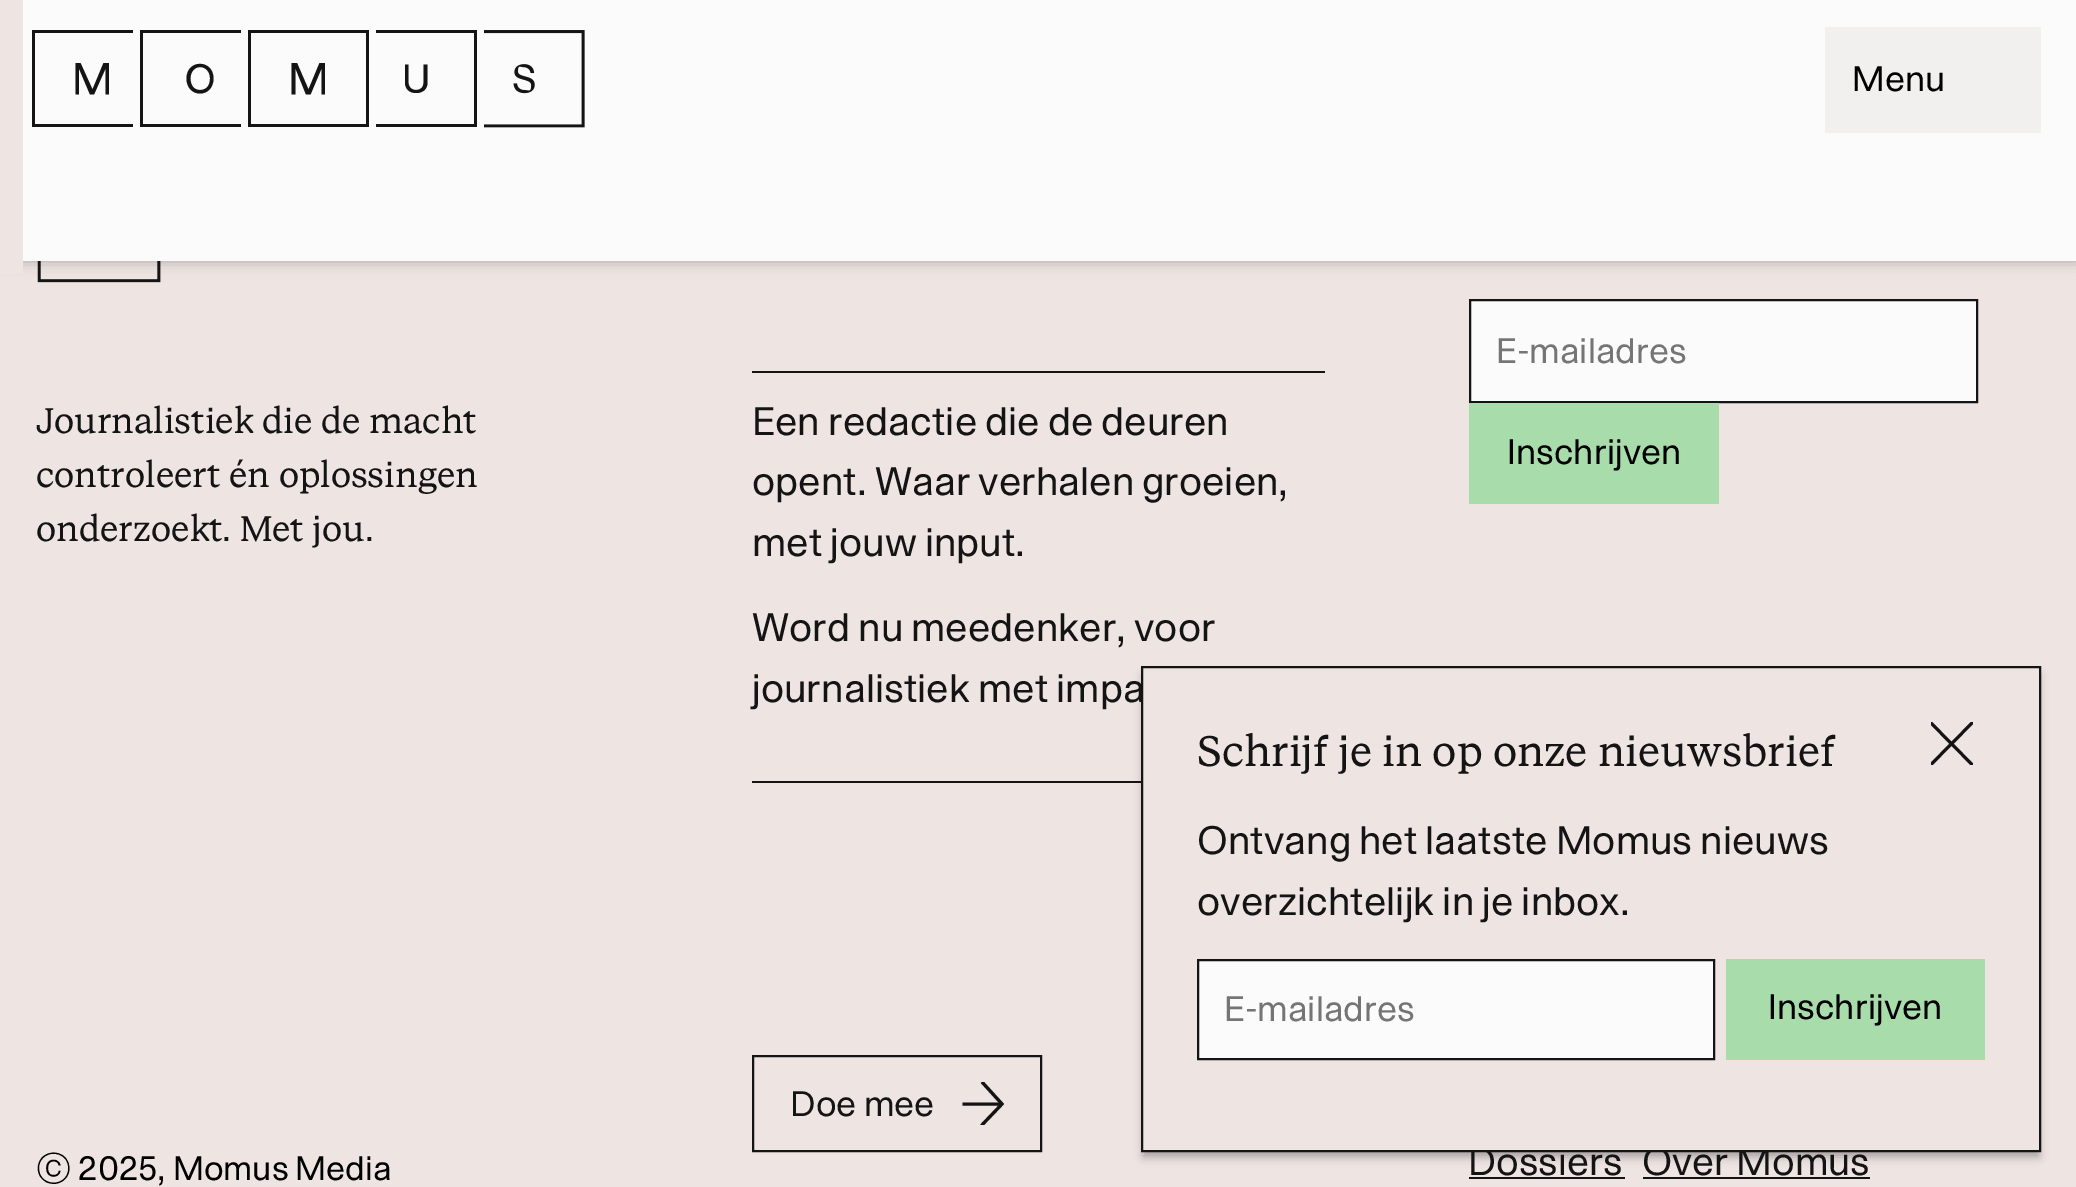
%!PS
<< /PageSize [2076 1187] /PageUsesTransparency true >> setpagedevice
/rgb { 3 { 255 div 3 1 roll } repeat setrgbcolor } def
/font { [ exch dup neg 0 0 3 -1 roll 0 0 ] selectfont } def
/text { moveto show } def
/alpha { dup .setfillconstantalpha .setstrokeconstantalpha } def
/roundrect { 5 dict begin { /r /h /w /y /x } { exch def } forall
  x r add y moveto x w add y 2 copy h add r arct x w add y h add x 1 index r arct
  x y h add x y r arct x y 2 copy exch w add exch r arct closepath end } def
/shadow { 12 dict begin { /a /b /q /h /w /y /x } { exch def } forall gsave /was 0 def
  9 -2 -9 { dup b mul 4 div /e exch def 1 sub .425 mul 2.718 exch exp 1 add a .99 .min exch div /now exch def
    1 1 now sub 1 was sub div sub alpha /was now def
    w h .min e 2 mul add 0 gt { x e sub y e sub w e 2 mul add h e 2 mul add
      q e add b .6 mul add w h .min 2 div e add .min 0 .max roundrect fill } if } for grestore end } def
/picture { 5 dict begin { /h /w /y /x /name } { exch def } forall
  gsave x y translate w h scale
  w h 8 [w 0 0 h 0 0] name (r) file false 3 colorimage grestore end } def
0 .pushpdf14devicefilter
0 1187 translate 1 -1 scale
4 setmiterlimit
238 229 227 rgb
0 0 2076 1187 rectfill
(img_02.rgb) 37 261 124 22 picture
0 0 0 rgb
0 0 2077 261 0 7 0.3 shadow
251 251 251 rgb
23 0 2053 261 rectfill
238 229 227 rgb
0 0 23 274 rectfill
20 20 20 rgb
32 127 moveto 121 0 rlineto 0 -97 rlineto -121 0 rlineto closepath 35 33 moveto 115 0 rlineto 0 91 rlineto -115 0 rlineto closepath fill
92.5 89.5 moveto -12 -26.5 rlineto -5 0 rlineto 0 31.5 rlineto 3.5 0 rlineto 0 -26 rlineto 11 26 rlineto 4 0 rlineto 11.5 -26 rlineto 0 26 rlineto 3.5 0 rlineto 0 -31.5 rlineto -5.5 0 rlineto closepath fill
251 251 251 rgb
133 30 20 97 rectfill
20 20 20 rgb
140 127 moveto 121 0 rlineto 0 -97 rlineto -121 0 rlineto closepath 143 33 moveto 115 0 rlineto 0 91 rlineto -115 0 rlineto closepath fill
186.5 78.5 moveto 0 20 27 20 27 0 rcurveto 0 -19.5 -27 -19.5 -27 0 rcurveto closepath 210 78.5 moveto 0 6.5 -3 11.5 -10 11.5 rcurveto -6.5 0 -9.5 -5 -9.5 -11.5 rcurveto 0 -15.5 19.5 -15 19.5 0 rcurveto closepath fill
356 127 moveto 121 0 rlineto 0 -97 rlineto -121 0 rlineto closepath 359 33 moveto 115 0 rlineto 0 91 rlineto -115 0 rlineto closepath fill
251 251 251 rgb
241 30 135 97 rectfill
20 20 20 rgb
248 127 moveto 121 0 rlineto 0 -97 rlineto -121 0 rlineto closepath 251 33 moveto 115 0 rlineto 0 91 rlineto -115 0 rlineto closepath fill
325 94.5 moveto 0 -31.5 rlineto -5.5 0 rlineto -11 26.5 rlineto -11.5 -26.5 rlineto -5.5 0 rlineto 0 31.5 rlineto 4 0 rlineto 0 -26 rlineto 10.5 26 rlineto 4.5 0 rlineto 11 -26 rlineto 0 26 rlineto closepath fill
405 64.5 moveto 0 18 rlineto 0 6.5 4.5 10.5 11 10.5 rcurveto 7 0 11.5 -4 11.5 -10.5 rcurveto 0 -18 rlineto -4 0 rlineto 0 18 rlineto 0 4.5 -2.5 7.5 -7.5 7.5 rcurveto -4.5 0 -7.5 -3 -7.5 -7.5 rcurveto 0 -18 rlineto closepath fill
(img_01.rgb) 484 30 101 98 picture
241 240 239 rgb
1825 27 216 106 rectfill
20 20 20 rgb
752 371 573 2 rectfill
752 781 389 2 rectfill
2 setlinewidth
753 1056 288 95 rectstroke
3 setlinewidth
962.5 1104 moveto 38.5 0 rlineto stroke
gsave
961 1082 43 43 rectclip
3.1 setlinewidth
982 1082 moveto 20 22 rlineto -20.5 21.5 rlineto stroke
grestore
251 251 251 rgb
1470 300 moveto 507 0 rlineto 0 102 rlineto -507 0 rlineto closepath gsave fill grestore
20 20 20 rgb
2 setlinewidth
stroke
168 220 171 rgb
1469 403 250 101 rectfill
20 20 20 rgb
1469 1177 156 2 rectfill
1643 1177 227 2 rectfill
0 0 0 rgb
1143 675 896 482 0 4.5 0.3 shadow
/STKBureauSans-Regular 36 font
(Menu) 1852 91 text
/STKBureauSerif-Regular 36 font
20 20 20 rgb
(Journalistiek die de macht) 36 433 text
(controleert én oplossingen) 36 487 text
(onderzoekt. Met jou.) 36 541 text
/STKBureauSans-Regular 34.25 font
0 0 0 rgb
(© 2025, Momus Media) 36 1180 text
/STKBureauSans-Regular 40.3 font
20 20 20 rgb
(Een redactie die de deuren) 752 435 text
(opent. Waar verhalen groeien,) 752 495 text
(met jouw input.) 752 556 text
(Word nu meedenker, voor) 752 641 text
(journalistiek met impa) 752 702 text
/STKBureauSans-Regular 36 font
(Doe mee) 790 1116 text
117 117 117 rgb
(E-mailadres) 1496 363 text
0 0 0 rgb
(Inschrijven) 1507 464 text
/STKBureauSans-Regular 39.5 font
20 20 20 rgb
(Dossiers) 1468 1175 text
(Over Momus) 1642 1175 text
238 229 227 rgb
1142 667 moveto 898 0 rlineto 0 484 rlineto -898 0 rlineto closepath gsave fill grestore
20 20 20 rgb
stroke
/STKBureauSerif-Regular 43.25 font
(Schrijf je in op onze nieuwsbrief) 1197 766 text
/STKBureauSans-Regular 40.3 font
(Ontvang het laatste Momus nieuws) 1197 854 text
(overzichtelijk in je inbox.) 1197 915 text
251 251 251 rgb
1198 960 moveto 516 0 rlineto 0 99 rlineto -516 0 rlineto closepath gsave fill grestore
20 20 20 rgb
stroke
/STKBureauSans-Regular 36 font
117 117 117 rgb
(E-mailadres) 1224 1021 text
168 220 171 rgb
1726 959 259 101 rectfill
0 0 0 rgb
(Inschrijven) 1768 1019 text
gsave
1931 722 42 43 rectclip
20 20 20 rgb
3 setlinewidth
1930 722 moveto 43 43.5 rlineto 1930 765.5 moveto 43 -43.5 rlineto stroke
grestore
.poppdf14devicefilter showpage
